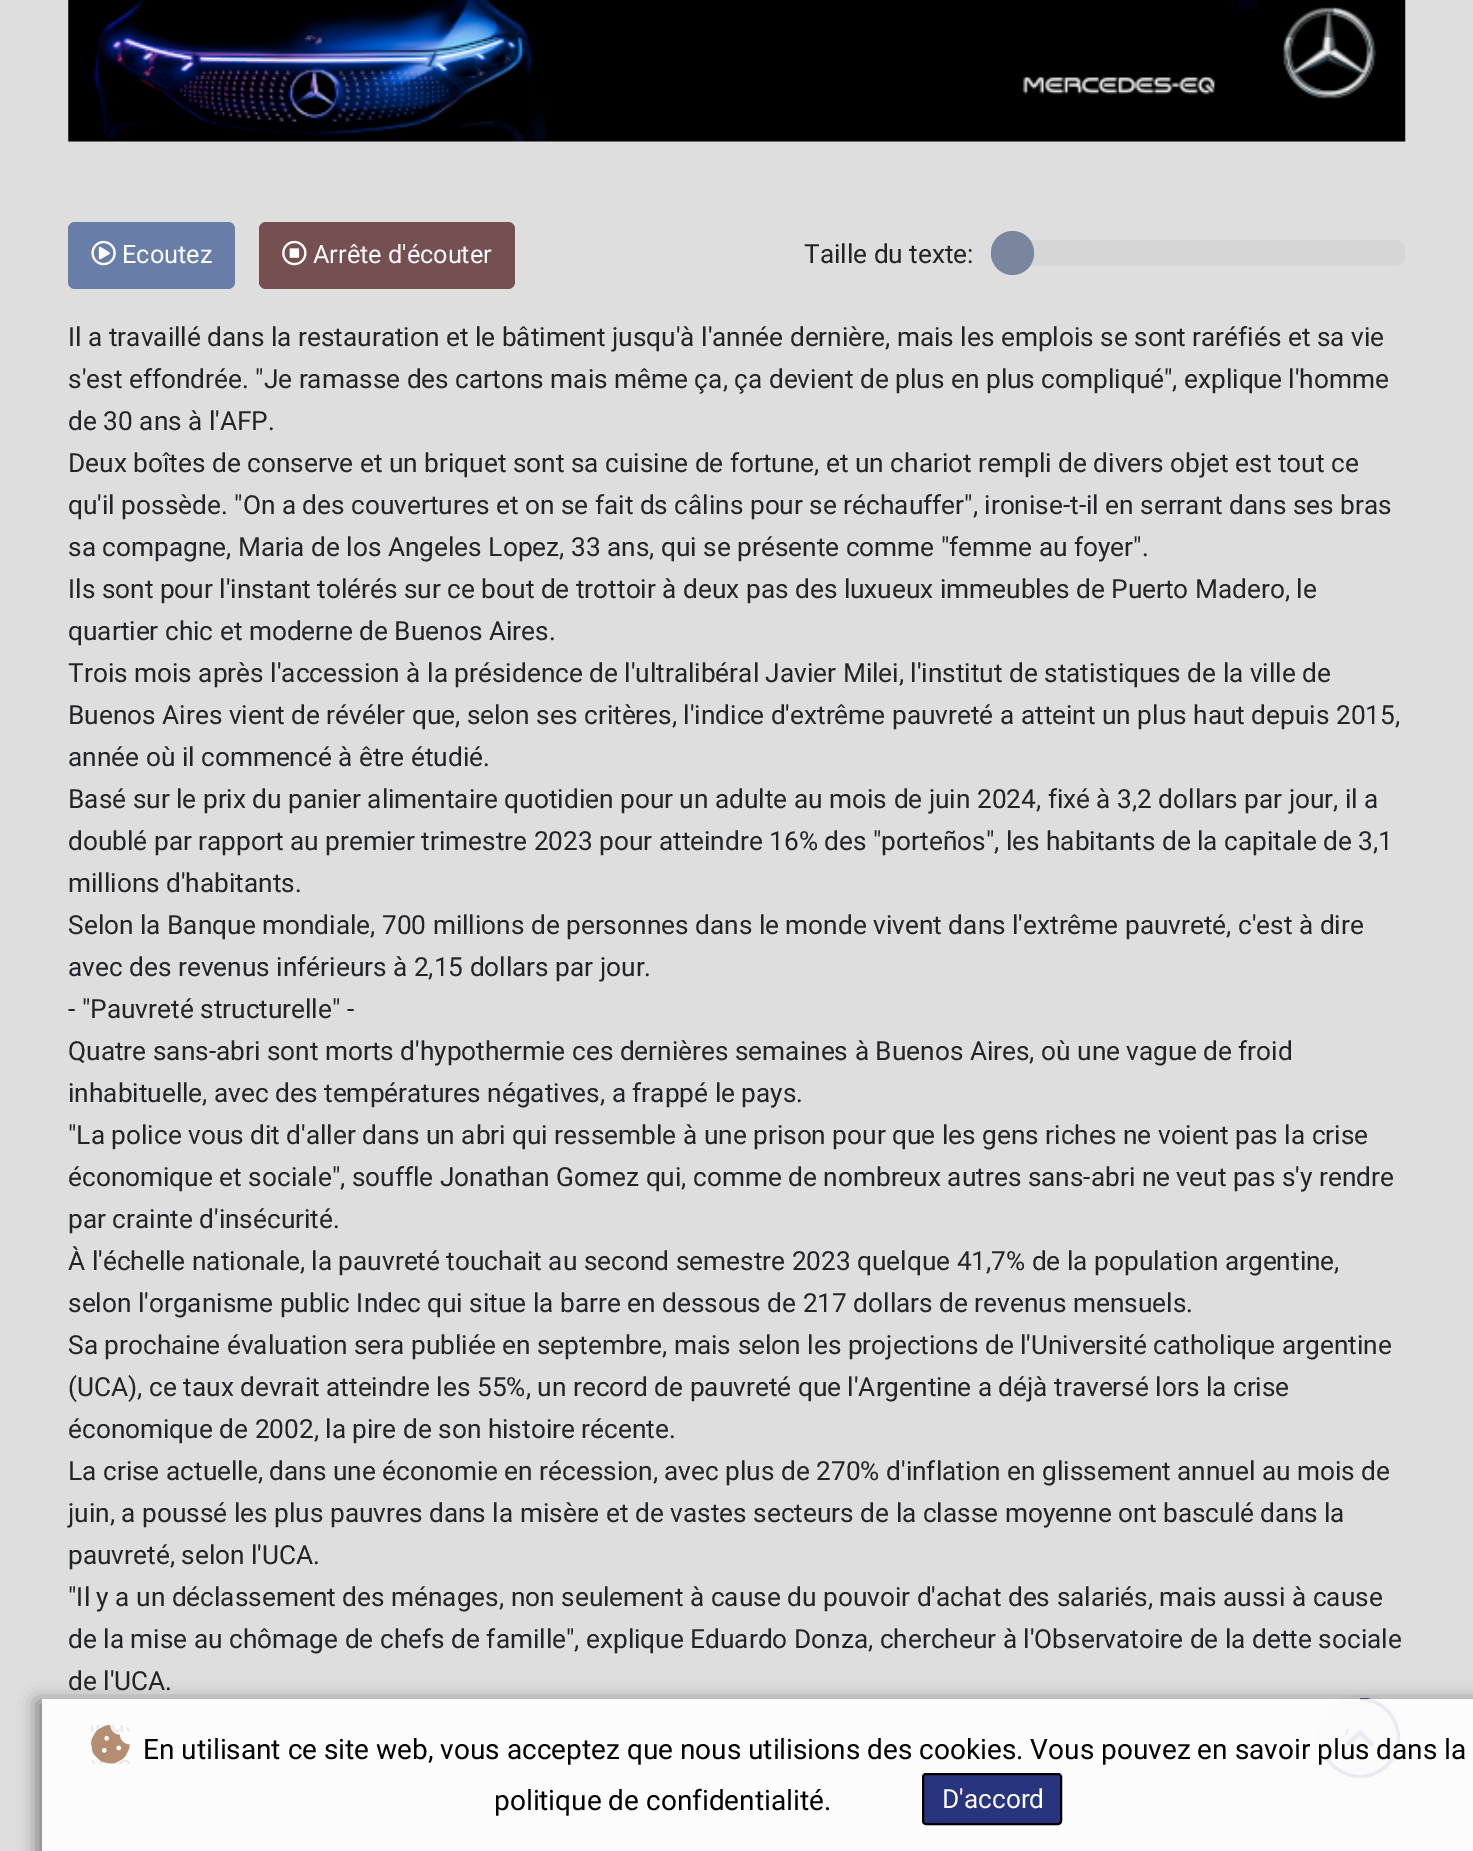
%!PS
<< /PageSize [1473 1851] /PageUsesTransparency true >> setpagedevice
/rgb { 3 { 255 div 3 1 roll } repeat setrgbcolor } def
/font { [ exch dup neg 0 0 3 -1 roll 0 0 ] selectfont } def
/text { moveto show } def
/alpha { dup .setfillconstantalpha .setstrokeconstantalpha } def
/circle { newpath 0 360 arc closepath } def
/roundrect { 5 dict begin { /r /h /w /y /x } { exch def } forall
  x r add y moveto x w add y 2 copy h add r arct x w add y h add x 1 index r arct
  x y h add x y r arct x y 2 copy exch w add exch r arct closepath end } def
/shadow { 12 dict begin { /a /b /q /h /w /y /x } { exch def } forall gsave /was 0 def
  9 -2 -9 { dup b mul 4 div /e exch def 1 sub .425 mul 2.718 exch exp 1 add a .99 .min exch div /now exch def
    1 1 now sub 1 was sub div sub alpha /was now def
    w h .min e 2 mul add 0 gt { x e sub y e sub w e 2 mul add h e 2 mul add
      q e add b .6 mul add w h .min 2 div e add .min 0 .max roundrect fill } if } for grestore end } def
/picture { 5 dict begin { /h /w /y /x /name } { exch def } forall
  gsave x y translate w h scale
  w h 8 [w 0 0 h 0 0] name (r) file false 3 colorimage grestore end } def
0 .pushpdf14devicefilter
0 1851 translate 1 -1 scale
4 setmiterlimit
222 222 222 rgb
0 0 1473 1851 rectfill
(img_01.rgb) 68 0 1338 142 picture
104 125 168 rgb
68 222 167 67 7 roundrect fill
(img_02.rgb) 91 240 25 26 picture
118 80 80 rgb
259 222 256 67 7 roundrect fill
(img_03.rgb) 282 240 25 26 picture
214 214 214 rgb
991 240 414 26 9 roundrect fill
122 134 158 rgb
991 231 43 44 21.5 roundrect fill
0.1 alpha
84 84 84 rgb
1360 1738 44 circle fill
0.2 alpha
255 255 255 rgb
4 setlinewidth
1360 1738 42 circle stroke
gsave
1320 1698 80 80 rectclip
1 alpha
40 53 126 rgb
3.2 setlinewidth
1360 1699 moveto 21 0 38.5 17.5 38.5 39 rcurveto 0 21 -17.5 38.5 -38.5 38.5 rcurveto -13.5 0 -25.5 -7 -32.5 -17 rcurveto stroke
grestore
1 alpha
(img_04.rgb) 1345 1729 30 18 picture
gsave
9 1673 moveto 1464 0 rlineto 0 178 rlineto -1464 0 rlineto closepath 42 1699 moveto 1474 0 rlineto 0 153 rlineto -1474 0 rlineto closepath eoclip newpath
121 121 121 rgb
37 1701 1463 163 0 9 1 shadow
grestore
0.9 alpha
42 1699 1431 152 rectfill
1 alpha
(img_05.rgb) 91 1725 39 39 picture
40 53 126 rgb
923 1774 138 50 3 roundrect gsave fill grestore
0 0 0 rgb
2 setlinewidth
stroke
/Roboto-Regular 25.25 font
255 255 255 rgb
(Ecoutez) 122 263 text
(Arrête d'écouter) 313 263 text
/Roboto-Regular 26.25 font
33 37 41 rgb
(Taille du texte:) 804 263 text
(Il a travaillé dans la restauration et le bâtiment jusqu'à l'année dernière, mais les emplois se sont raréfiés et sa vie) 68 346 text
(s'est effondrée. "Je ramasse des cartons mais même ça, ça devient de plus en plus compliqué", explique l'homme) 68 388 text
(de 30 ans à l'AFP.) 68 430 text
(Deux boîtes de conserve et un briquet sont sa cuisine de fortune, et un chariot rempli de divers objet est tout ce) 68 472 text
(qu'il possède. "On a des couvertures et on se fait ds câlins pour se réchauffer", ironise-t-il en serrant dans ses bras) 68 514 text
(sa compagne, Maria de los Angeles Lopez, 33 ans, qui se présente comme "femme au foyer".) 68 556 text
(Ils sont pour l'instant tolérés sur ce bout de trottoir à deux pas des luxueux immeubles de Puerto Madero, le) 68 598 text
(quartier chic et moderne de Buenos Aires.) 68 640 text
(Trois mois après l'accession à la présidence de l'ultralibéral Javier Milei, l'institut de statistiques de la ville de) 68 682 text
(Buenos Aires vient de révéler que, selon ses critères, l'indice d'extrême pauvreté a atteint un plus haut depuis 2015,) 68 724 text
(année où il commencé à être étudié.) 68 766 text
(Basé sur le prix du panier alimentaire quotidien pour un adulte au mois de juin 2024, fixé à 3,2 dollars par jour, il a) 68 808 text
(doublé par rapport au premier trimestre 2023 pour atteindre 16% des "porteños", les habitants de la capitale de 3,1) 68 850 text
(millions d'habitants.) 68 892 text
(Selon la Banque mondiale, 700 millions de personnes dans le monde vivent dans l'extrême pauvreté, c'est à dire) 68 934 text
(avec des revenus inférieurs à 2,15 dollars par jour.) 68 976 text
(- "Pauvreté structurelle" -) 68 1018 text
(Quatre sans-abri sont morts d'hypothermie ces dernières semaines à Buenos Aires, où une vague de froid) 68 1060 text
(inhabituelle, avec des températures négatives, a frappé le pays.) 68 1102 text
("La police vous dit d'aller dans un abri qui ressemble à une prison pour que les gens riches ne voient pas la crise) 68 1144 text
(économique et sociale", souffle Jonathan Gomez qui, comme de nombreux autres sans-abri ne veut pas s'y rendre) 68 1186 text
(par crainte d'insécurité.) 68 1228 text
(À l'échelle nationale, la pauvreté touchait au second semestre 2023 quelque 41,7% de la population argentine,) 68 1270 text
(selon l'organisme public Indec qui situe la barre en dessous de 217 dollars de revenus mensuels.) 68 1312 text
(Sa prochaine évaluation sera publiée en septembre, mais selon les projections de l'Université catholique argentine) 68 1354 text
(\(UCA\), ce taux devrait atteindre les 55%, un record de pauvreté que l'Argentine a déjà traversé lors la crise) 68 1396 text
(économique de 2002, la pire de son histoire récente.) 68 1438 text
(La crise actuelle, dans une économie en récession, avec plus de 270% d'inflation en glissement annuel au mois de) 68 1480 text
(juin, a poussé les plus pauvres dans la misère et de vastes secteurs de la classe moyenne ont basculé dans la) 68 1522 text
(pauvreté, selon l'UCA.) 68 1564 text
("Il y a un déclassement des ménages, non seulement à cause du pouvoir d'achat des salariés, mais aussi à cause) 68 1606 text
(de la mise au chômage de chefs de famille", explique Eduardo Donza, chercheur à l'Observatoire de la dette sociale) 68 1648 text
(de l'UCA.) 68 1690 text
/Roboto-Regular 28 font
0 0 0 rgb
(En utilisant ce site web, vous acceptez que nous utilisions des cookies. Vous pouvez en savoir plus dans la) 143 1759 text
(politique de confidentialité.) 494 1810 text
/Roboto-Regular 26.25 font
255 255 255 rgb
(D'accord) 942 1808 text
.poppdf14devicefilter showpage
